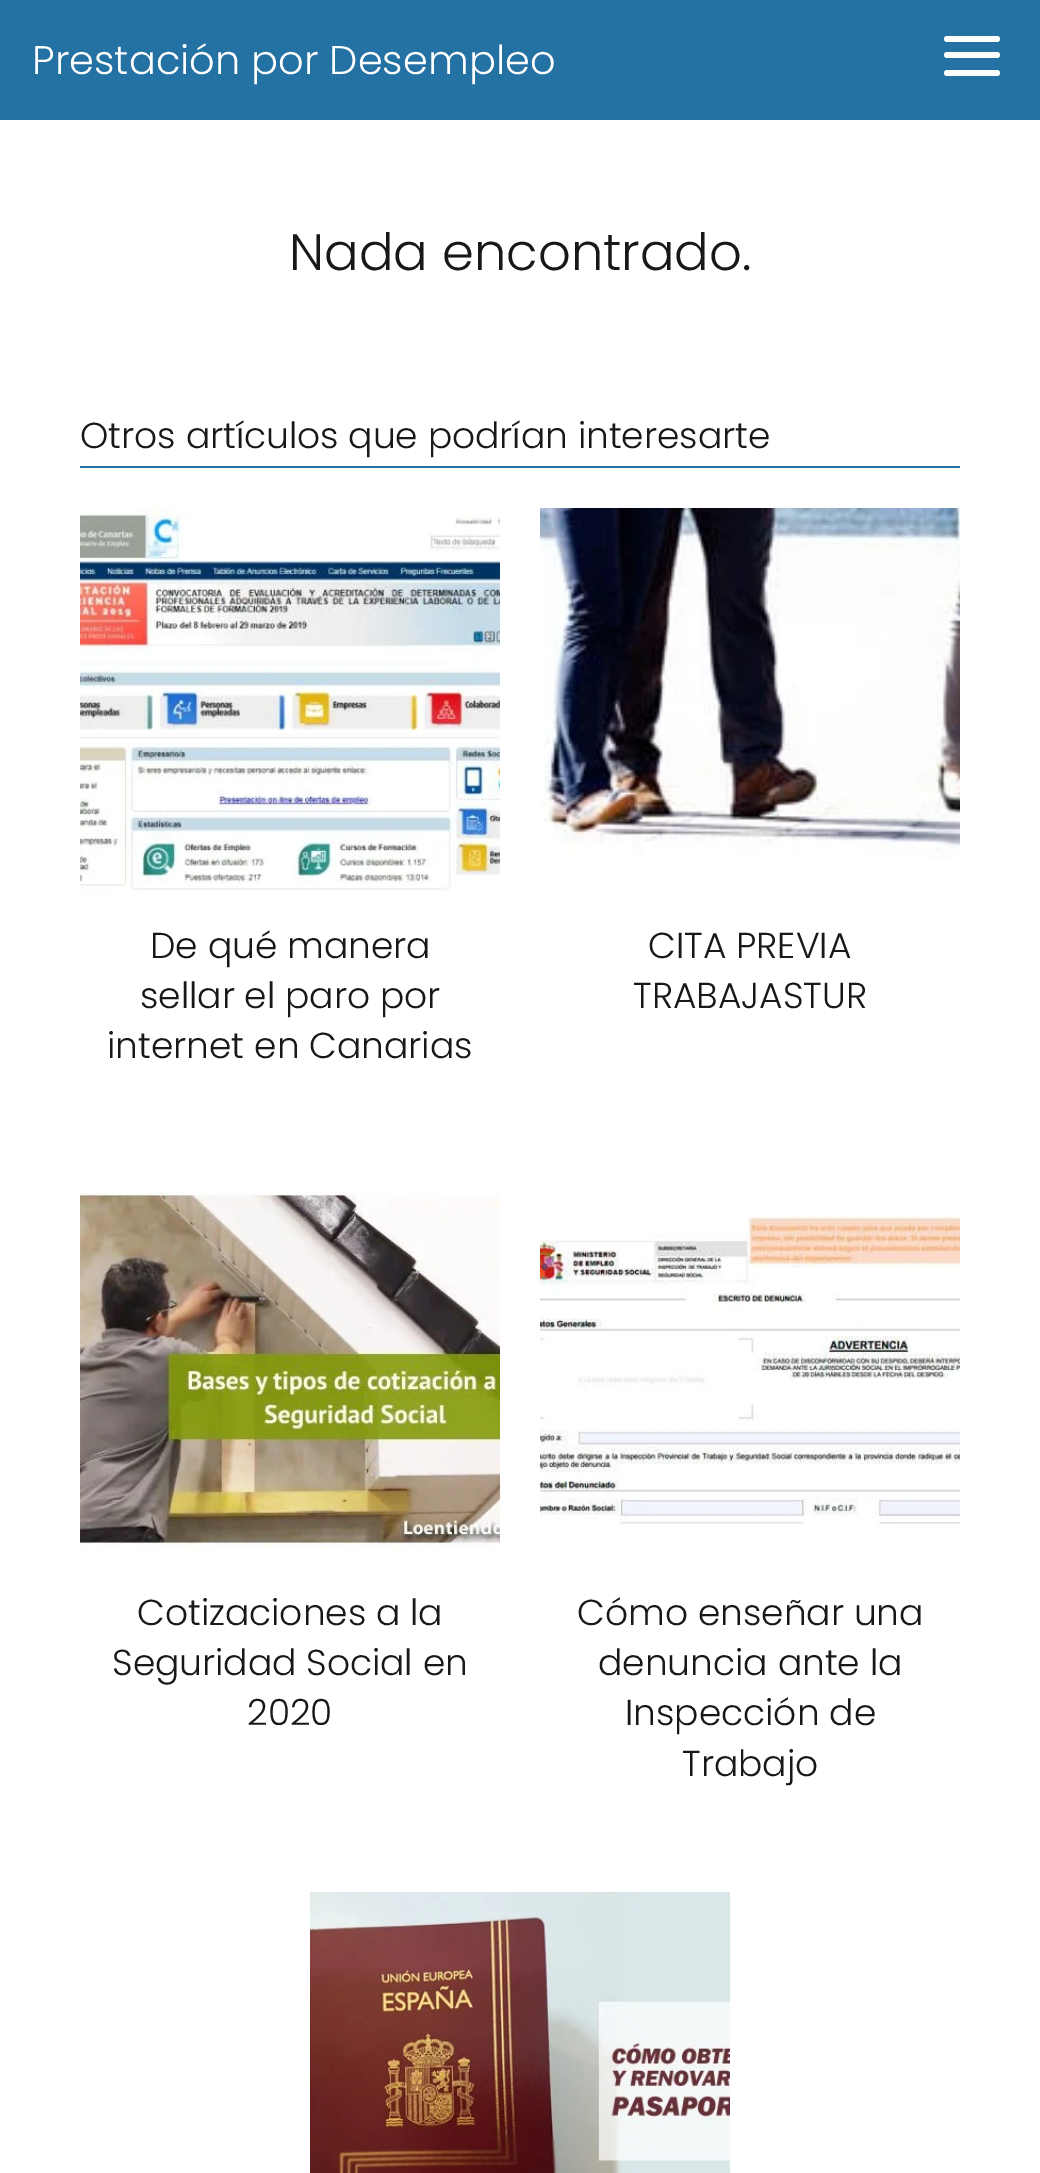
%!PS
<< /PageSize [1040 2173] >> setpagedevice
/rgb { 3 { 255 div 3 1 roll } repeat setrgbcolor } def
/font { [ exch dup neg 0 0 3 -1 roll 0 0 ] selectfont } def
/text { moveto show } def
/roundrect { 5 dict begin { /r /h /w /y /x } { exch def } forall
  x r add y moveto x w add y 2 copy h add r arct x w add y h add x 1 index r arct
  x y h add x y r arct x y 2 copy exch w add exch r arct closepath end } def
/picture { 5 dict begin { /h /w /y /x /name } { exch def } forall
  gsave x y translate w h scale
  w h 8 [w 0 0 h 0 0] name (r) file false 3 colorimage grestore end } def
0 2173 translate 1 -1 scale
4 setmiterlimit
255 255 255 rgb
0 0 1040 2173 rectfill
36 113 163 rgb
0 0 1040 120 rectfill
255 255 255 rgb
944 36 56 6 3 roundrect fill
944 52 56 6 3 roundrect fill
944 70 56 6 3 roundrect fill
36 113 163 rgb
80 466 880 2 rectfill
(img_01.rgb) 80 508 420 383 picture
(img_02.rgb) 540 508 420 351 picture
(img_03.rgb) 80 1191 420 358 picture
(img_04.rgb) 540 1216 420 308 picture
(img_05.rgb) 310 1892 420 281 picture
/Poppins-Light 40 font
255 255 255 rgb
(Prestación por Desempleo) 32 74 text
/Poppins-Light 51.25 font
24 24 24 rgb
(Nada encontrado.) 289 270 text
/Poppins-Light 36 font
(Otros artículos que podrían interesarte) 80 448 text
(De qué manera) 150 958 text
(sellar el paro por) 140 1008 text
(internet en Canarias) 107 1058 text
(CITA PREVIA) 648 958 text
(TRABAJASTUR) 633 1008 text
(Cotizaciones a la) 137 1625 text
(Seguridad Social en) 112 1675 text
(2020) 247 1725 text
(Cómo enseñar una) 577 1625 text
(denuncia ante la) 598 1675 text
(Inspección de) 625 1725 text
(Trabajo) 682 1776 text
showpage
